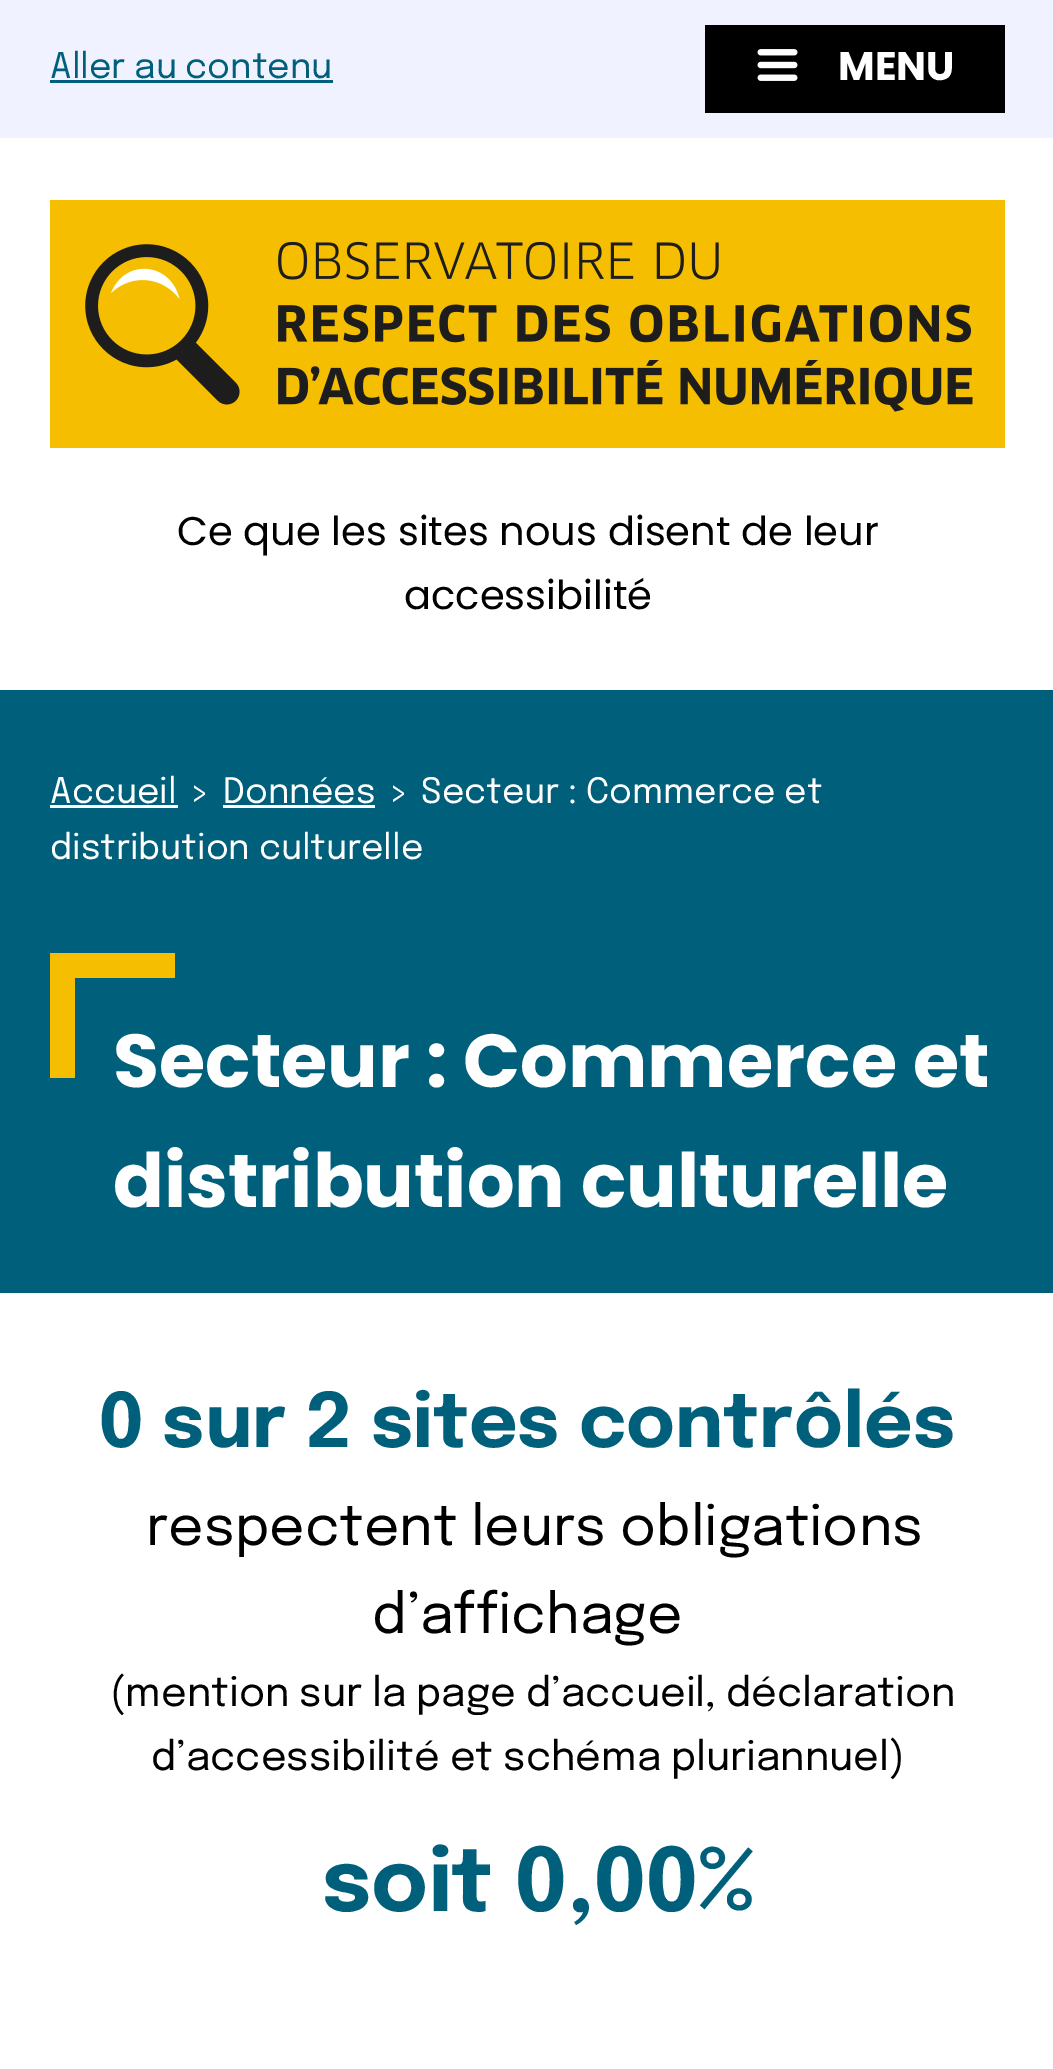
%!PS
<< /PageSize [1053 2069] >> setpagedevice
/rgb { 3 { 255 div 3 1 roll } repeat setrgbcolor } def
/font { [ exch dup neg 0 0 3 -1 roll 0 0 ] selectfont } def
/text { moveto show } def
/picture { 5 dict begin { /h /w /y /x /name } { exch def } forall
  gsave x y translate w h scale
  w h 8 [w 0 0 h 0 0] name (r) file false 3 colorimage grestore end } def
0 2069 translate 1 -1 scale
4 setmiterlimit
255 255 255 rgb
0 0 1053 2069 rectfill
240 243 255 rgb
0 0 1053 138 rectfill
0 95 122 rgb
50 80 283 3 rectfill
0 0 0 rgb
705 25 300 88 rectfill
(img_01.rgb) 757 49 41 32 picture
(img_02.rgb) 50 200 955 248 picture
0 95 122 rgb
0 690 1053 603 rectfill
255 255 255 rgb
50 805 128 3 rectfill
223 805 152 3 rectfill
246 190 0 rgb
75 953 100 25 rectfill
50 953 25 125 rectfill
/Epilogue-Regular 35 font
0 95 122 rgb
(Aller au contenu) 50 78 text
/Poppins-Bold 40 font
255 255 255 rgb
(MENU) 838 80 text
/Poppins-Regular 40 font
0 0 0 rgb
(Ce que les sites nous disent de leur) 177 545 text
(accessibilité) 404 609 text
/Epilogue-Regular 35 font
255 255 255 rgb
(Accueil) 50 803 text
(>) 189 803 text
(Données) 223 803 text
(>) 388 803 text
(Secteur : Commerce et) 421 803 text
(distribution culturelle) 50 859 text
/Poppins-Bold 75 font
(Secteur : Commerce et) 113 1087 text
(distribution culturelle) 113 1207 text
/Epilogue-Bold 75 font
0 95 122 rgb
(0 sur 2 sites contrôlés) 99 1447 text
/Epilogue-Regular 55 font
0 0 0 rgb
(respectent leurs obligations) 146 1545 text
(d’affichage) 372 1633 text
/Epilogue-Regular 40 font
(\(mention sur la page d’accueil, déclaration) 110 1706 text
(d’accessibilité et schéma pluriannuel\)) 151 1770 text
/Epilogue-Bold 87.5 font
0 95 122 rgb
(soit 0,00%) 322 1911 text
showpage
